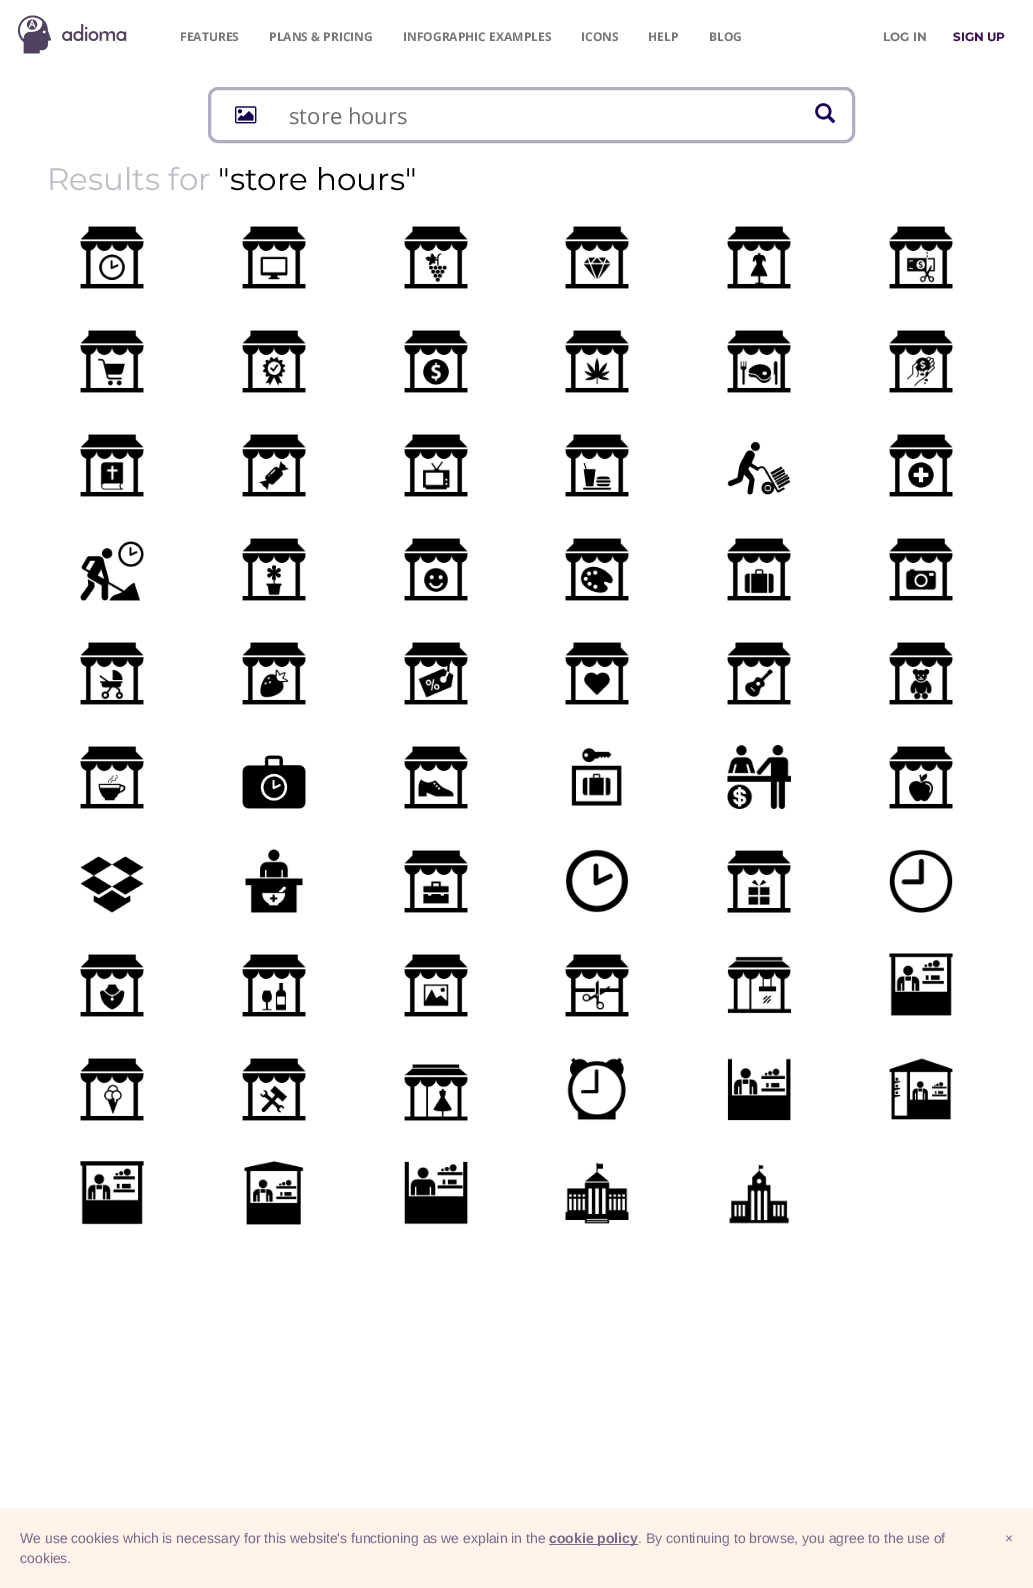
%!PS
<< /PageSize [1033 1588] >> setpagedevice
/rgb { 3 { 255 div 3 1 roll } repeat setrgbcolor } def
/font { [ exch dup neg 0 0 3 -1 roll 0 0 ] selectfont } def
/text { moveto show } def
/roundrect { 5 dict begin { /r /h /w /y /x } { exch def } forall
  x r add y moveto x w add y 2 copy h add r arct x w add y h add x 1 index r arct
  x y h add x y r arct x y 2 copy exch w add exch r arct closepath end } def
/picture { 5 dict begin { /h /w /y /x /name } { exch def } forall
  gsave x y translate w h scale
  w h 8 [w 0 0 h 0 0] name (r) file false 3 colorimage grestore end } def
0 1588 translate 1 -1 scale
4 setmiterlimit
255 255 255 rgb
0 0 1033 1588 rectfill
(img_01.rgb) 18 15 109 39 picture
178 173 196 rgb
3 setlinewidth
209.5 88.5 644 53 8.5 roundrect stroke
(img_02.rgb) 235 106 22 18 picture
(img_03.rgb) 815 103 21 21 picture
(img_04.rgb) 80 226 64 63 picture
(img_05.rgb) 242 226 64 63 picture
(img_06.rgb) 404 226 64 63 picture
(img_07.rgb) 565 226 64 63 picture
(img_08.rgb) 727 226 64 63 picture
(img_09.rgb) 889 226 64 63 picture
(img_10.rgb) 80 330 64 63 picture
(img_11.rgb) 242 330 64 63 picture
(img_12.rgb) 404 330 64 63 picture
(img_13.rgb) 565 330 64 63 picture
(img_14.rgb) 727 330 64 63 picture
(img_15.rgb) 889 330 64 63 picture
(img_16.rgb) 80 434 64 63 picture
(img_17.rgb) 242 434 64 63 picture
(img_18.rgb) 404 434 64 63 picture
(img_19.rgb) 565 434 64 63 picture
(img_20.rgb) 727 441 64 54 picture
(img_21.rgb) 889 434 64 63 picture
(img_22.rgb) 80 541 64 60 picture
(img_23.rgb) 242 538 64 63 picture
(img_24.rgb) 404 538 64 63 picture
(img_25.rgb) 565 538 64 63 picture
(img_26.rgb) 727 538 64 63 picture
(img_27.rgb) 889 538 64 63 picture
(img_28.rgb) 80 642 64 63 picture
(img_29.rgb) 242 642 64 63 picture
(img_30.rgb) 404 642 64 63 picture
(img_31.rgb) 565 642 64 63 picture
(img_32.rgb) 727 642 64 63 picture
(img_33.rgb) 889 642 64 63 picture
(img_34.rgb) 80 746 64 63 picture
(img_35.rgb) 242 755 64 54 picture
(img_36.rgb) 404 746 64 63 picture
(img_37.rgb) 571 748 51 58 picture
(img_38.rgb) 727 745 64 64 picture
(img_39.rgb) 889 746 64 63 picture
(img_40.rgb) 80 856 64 57 picture
(img_41.rgb) 245 849 58 64 picture
(img_42.rgb) 404 850 64 63 picture
(img_43.rgb) 565 849 64 64 picture
(img_44.rgb) 727 850 64 63 picture
(img_45.rgb) 889 849 64 64 picture
(img_46.rgb) 80 954 64 63 picture
(img_47.rgb) 242 954 64 63 picture
(img_48.rgb) 404 954 64 63 picture
(img_49.rgb) 565 954 64 63 picture
(img_50.rgb) 727 956 64 58 picture
(img_51.rgb) 889 953 64 63 picture
(img_52.rgb) 80 1058 64 63 picture
(img_53.rgb) 242 1058 64 63 picture
(img_54.rgb) 404 1064 64 57 picture
(img_55.rgb) 567 1057 59 64 picture
(img_56.rgb) 727 1058 64 63 picture
(img_57.rgb) 889 1058 64 62 picture
(img_58.rgb) 80 1161 64 64 picture
(img_59.rgb) 244 1161 60 64 picture
(img_60.rgb) 404 1161 64 64 picture
(img_61.rgb) 565 1162 64 62 picture
(img_62.rgb) 729 1164 61 60 picture
255 243 234 rgb
0 1508 1033 80 rectfill
121 104 139 rgb
549 1544 89 1 rectfill
/OpenSans-Bold 12 font
119 119 119 rgb
(FEATURES) 180 41 text
(PLANS & PRICING) 269 41 text
(INFOGRAPHIC EXAMPLES) 403 41 text
(ICONS) 581 41 text
(HELP) 648 41 text
(BLOG) 709 41 text
/Montserrat-Bold 12 font
(LOG IN) 883 41 text
59 15 81 rgb
(SIGN UP) 953 41 text
/OpenSans-Regular 22 font
108 108 108 rgb
(store hours) 289 124 text
/Montserrat-Regular 31 font
190 190 198 rgb
(Results for) 47 190 text
0 0 0 rgb
("store hours") 218 190 text
/LiberationSans-Regular 14 font
121 104 139 rgb
(We use cookies which is necessary for this website's functioning as we explain in the) 20 1543 text
/LiberationSans-Bold 14 font
(cookie policy) 549 1543 text
/LiberationSans-Regular 14 font
(. By continuing to browse, you agree to the use of) 638 1543 text
(cookies.) 20 1563 text
(×) 1005 1543 text
showpage
